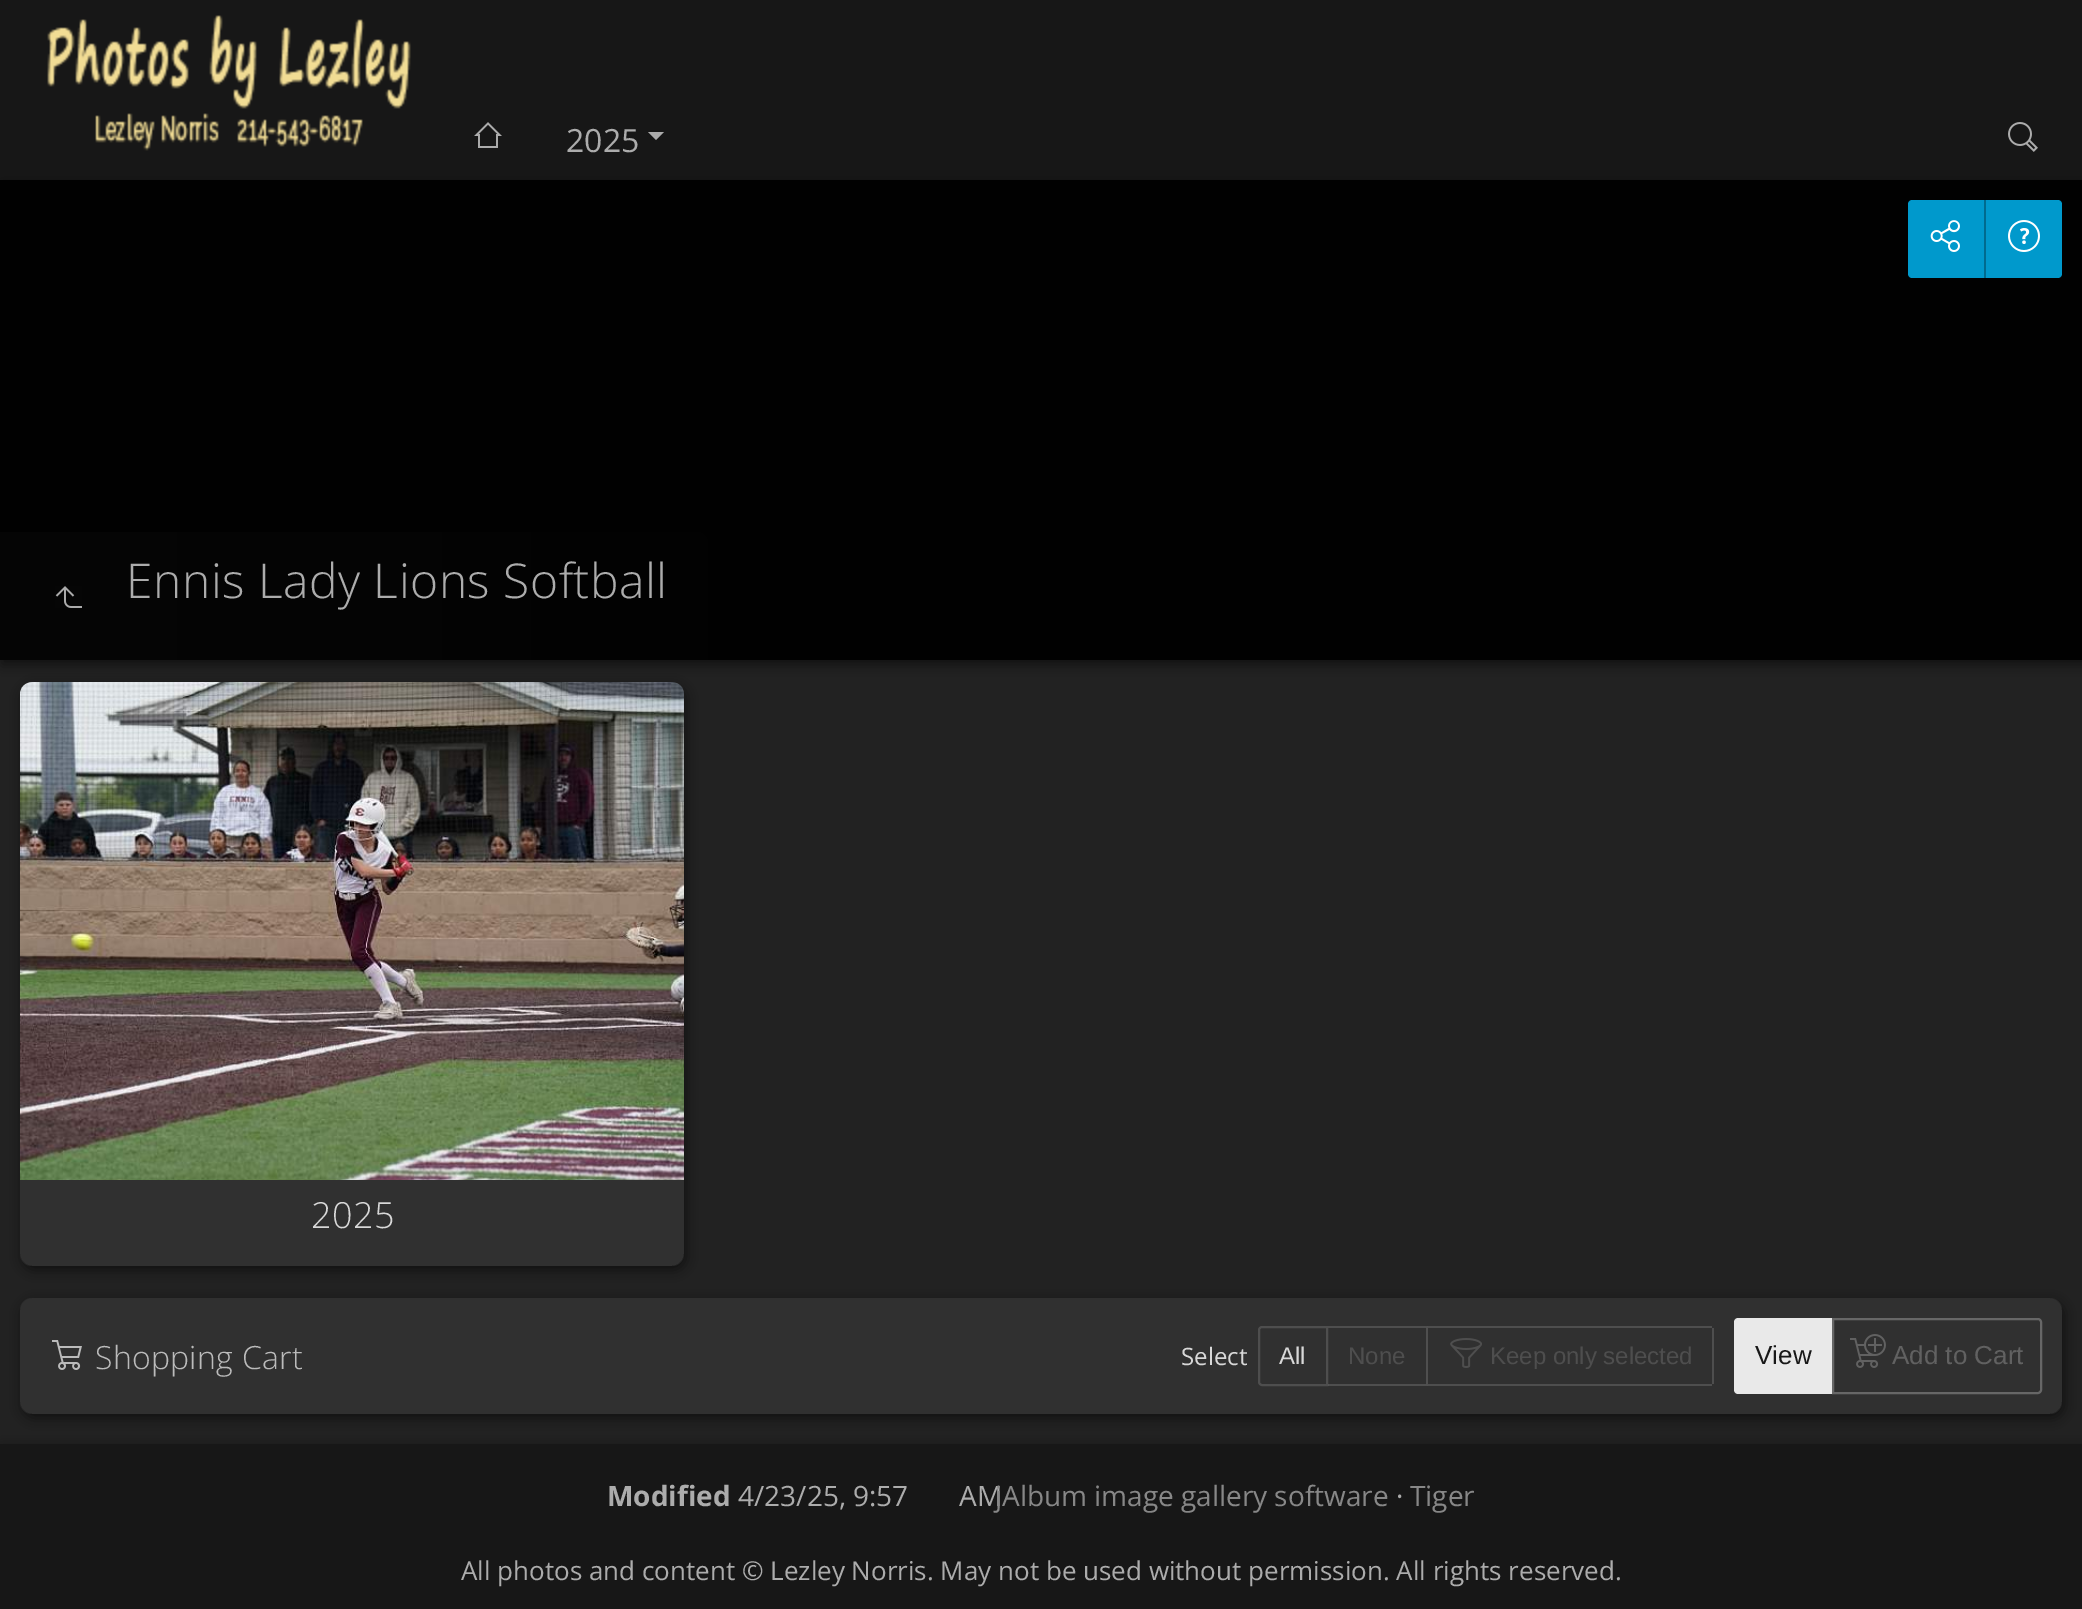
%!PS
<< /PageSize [2082 1609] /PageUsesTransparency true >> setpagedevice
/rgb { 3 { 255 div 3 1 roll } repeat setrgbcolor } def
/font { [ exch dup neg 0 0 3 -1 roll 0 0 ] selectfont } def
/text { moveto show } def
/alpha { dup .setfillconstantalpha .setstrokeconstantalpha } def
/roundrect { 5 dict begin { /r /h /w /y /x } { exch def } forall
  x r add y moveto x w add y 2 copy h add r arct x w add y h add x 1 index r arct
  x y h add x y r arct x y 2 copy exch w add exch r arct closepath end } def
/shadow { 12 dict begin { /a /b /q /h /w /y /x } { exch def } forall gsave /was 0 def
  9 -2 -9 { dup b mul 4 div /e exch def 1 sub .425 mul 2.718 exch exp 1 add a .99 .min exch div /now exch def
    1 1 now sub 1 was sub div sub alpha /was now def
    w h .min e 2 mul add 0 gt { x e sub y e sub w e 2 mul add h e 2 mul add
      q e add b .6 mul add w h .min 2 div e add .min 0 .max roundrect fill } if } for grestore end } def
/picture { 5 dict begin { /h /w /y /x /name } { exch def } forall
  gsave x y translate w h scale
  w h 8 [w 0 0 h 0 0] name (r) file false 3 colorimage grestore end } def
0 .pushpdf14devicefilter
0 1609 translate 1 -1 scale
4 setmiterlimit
34 34 34 rgb
0 0 2082 1609 rectfill
23 23 23 rgb
0 0 2082 180 rectfill
(img_01.rgb) 47 15 364 136 picture
(img_02.rgb) 474 122 28 26 picture
172 172 172 rgb
648 132 moveto 16 0 rlineto -8 8 rlineto closepath fill
(img_03.rgb) 2008 122 30 30 picture
0 0 0 rgb
2 184 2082 480 0 6 0.52 shadow
1 1 1 rgb
0 180 2082 480 rectfill
0 153 204 rgb
1912 200 moveto 72 0 rlineto 0 78 rlineto -72 0 rlineto -2 0 -4 -2 -4 -4 rcurveto 0 -70 rlineto 0 -2 2 -4 4 -4 rcurveto closepath fill
(img_04.rgb) 1930 220 30 32 picture
1984 200 moveto 74 0 rlineto 2 0 4 2 4 4 rcurveto 0 70 rlineto 0 2 -2 4 -4 4 rcurveto -74 0 rlineto closepath fill
0 107 143 rgb
1984 200 2 78 rectfill
(img_05.rgb) 2008 220 32 32 picture
gsave 0 532 moveto 696 0 rlineto 6.5 0 12 5.5 12 12 rcurveto 0 116 rlineto -708 0 rlineto closepath clip newpath
<< /ShadingType 2 /ColorSpace /DeviceRGB /Coords [0 596 708 596] /Extend [true true] /Function << /FunctionType 3 /Domain [0 1] /Functions [<< /FunctionType 2 /Domain [0 1] /C0 [0.024 0.024 0.024] /C1 [0.016 0.016 0.016] /N 1 >> << /FunctionType 2 /Domain [0 1] /C0 [0.016 0.016 0.016] /C1 [0.008 0.008 0.008] /N 1 >>] /Bounds [0.6] /Encode [0 1 0 1] >> >> shfill grestore
(img_06.rgb) 55 586 27 22 picture
gsave
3 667 moveto 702 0 rlineto 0 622 rlineto -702 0 rlineto closepath 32 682 moveto 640 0 rlineto 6.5 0 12 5.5 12 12 rcurveto 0 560 rlineto 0 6.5 -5.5 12 -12 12 rcurveto -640 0 rlineto -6.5 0 -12 -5.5 -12 -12 rcurveto 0 -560 rlineto 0 -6.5 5.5 -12 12 -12 rcurveto closepath eoclip newpath
0 0 0 rgb
22 686 664 584 12 6 0.52 shadow
grestore
0.4 alpha
68 68 68 rgb
20 682 664 584 12 roundrect fill
1 alpha
(img_07.rgb) 20 682 664 498 picture
gsave
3 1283 moveto 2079 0 rlineto 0 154 rlineto -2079 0 rlineto closepath 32 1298 moveto 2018 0 rlineto 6.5 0 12 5.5 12 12 rcurveto 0 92 rlineto 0 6.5 -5.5 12 -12 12 rcurveto -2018 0 rlineto -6.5 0 -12 -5.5 -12 -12 rcurveto 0 -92 rlineto 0 -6.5 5.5 -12 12 -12 rcurveto closepath eoclip newpath
0 0 0 rgb
22 1302 2042 116 12 6 0.52 shadow
grestore
0.4 alpha
20 1298 2042 116 12 roundrect fill
1 alpha
(img_08.rgb) 52 1340 30 30 picture
78 78 78 rgb
2 setlinewidth
1262 1327 moveto 65 0 rlineto 0 58 rlineto -65 0 rlineto -1.5 0 -3 -1.5 -3 -3 rcurveto 0 -52 rlineto 0 -1.5 1.5 -3 3 -3 rcurveto closepath stroke
1328 1326 moveto 100 0 rlineto -2 2 rlineto -98 0 rlineto closepath fill
0.25 alpha
170 170 170 rgb
1428 1326 moveto 0 60 rlineto -2 -2 rlineto 0 -56 rlineto closepath fill
1428 1386 moveto -100 0 rlineto 0 -2 rlineto 98 0 rlineto closepath fill
1 alpha
78 78 78 rgb
1428 1326 284 2 rectfill
1712 1328 2 56 rectfill
1428 1384 284 2 rectfill
(img_09.rgb) 1450 1338 32 30 picture
233 233 233 rgb
1738 1318 moveto 94 0 rlineto 0 76 rlineto -94 0 rlineto -2 0 -4 -2 -4 -4 rcurveto 0 -68 rlineto 0 -2 2 -4 4 -4 rcurveto closepath fill
103 103 103 rgb
1833 1319 moveto 205 0 rlineto 1.5 0 3 1.5 3 3 rcurveto 0 68 rlineto 0 1.5 -1.5 3 -3 3 rcurveto -205 0 rlineto closepath stroke
(img_10.rgb) 1850 1334 36 34 picture
0 0 0 rgb
2 1448 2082 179 0 6 0.52 shadow
23 23 23 rgb
0 1444 2082 165 rectfill
/OpenSans-Regular 32 font
172 172 172 rgb
(2025) 566 152 text
/OpenSans-Light 48 font
126 598 moveto 0.5 0 (Ennis Lady Lions Softball) ashow
/OpenSans-Light 36 font
216 216 216 rgb
311 1228 moveto 0.5 0 (2025) ashow
/OpenSans-Light 32 font
187 187 187 rgb
95 1369 moveto 0.25 0 (Shopping Cart) ashow
/OpenSans-Regular 24 font
216 216 216 rgb
(Select) 1181 1365 text
/LiberationSans-Regular 24 font
(All) 1279 1364 text
78 78 78 rgb
(None) 1348 1364 text
(Keep only selected) 1490 1364 text
/LiberationSans-Regular 26 font
24 24 24 rgb
(View) 1755 1364 text
97 97 97 rgb
(Add to Cart) 1892 1364 text
/OpenSans-Bold 28 font
172 172 172 rgb
(Modified) 607 1506 text
/OpenSans-Regular 28 font
(4/23/25, 9:57 AM) 738 1506 text
135 135 135 rgb
(jAlbum image gallery software) 995 1506 text
172 172 172 rgb
(·) 1396 1506 text
135 135 135 rgb
(Tiger) 1410 1506 text
/OpenSans-Regular 26 font
172 172 172 rgb
(All photos and content © Lezley Norris. May not be used without permission. All rights reserved.) 461 1580 text
.poppdf14devicefilter showpage
